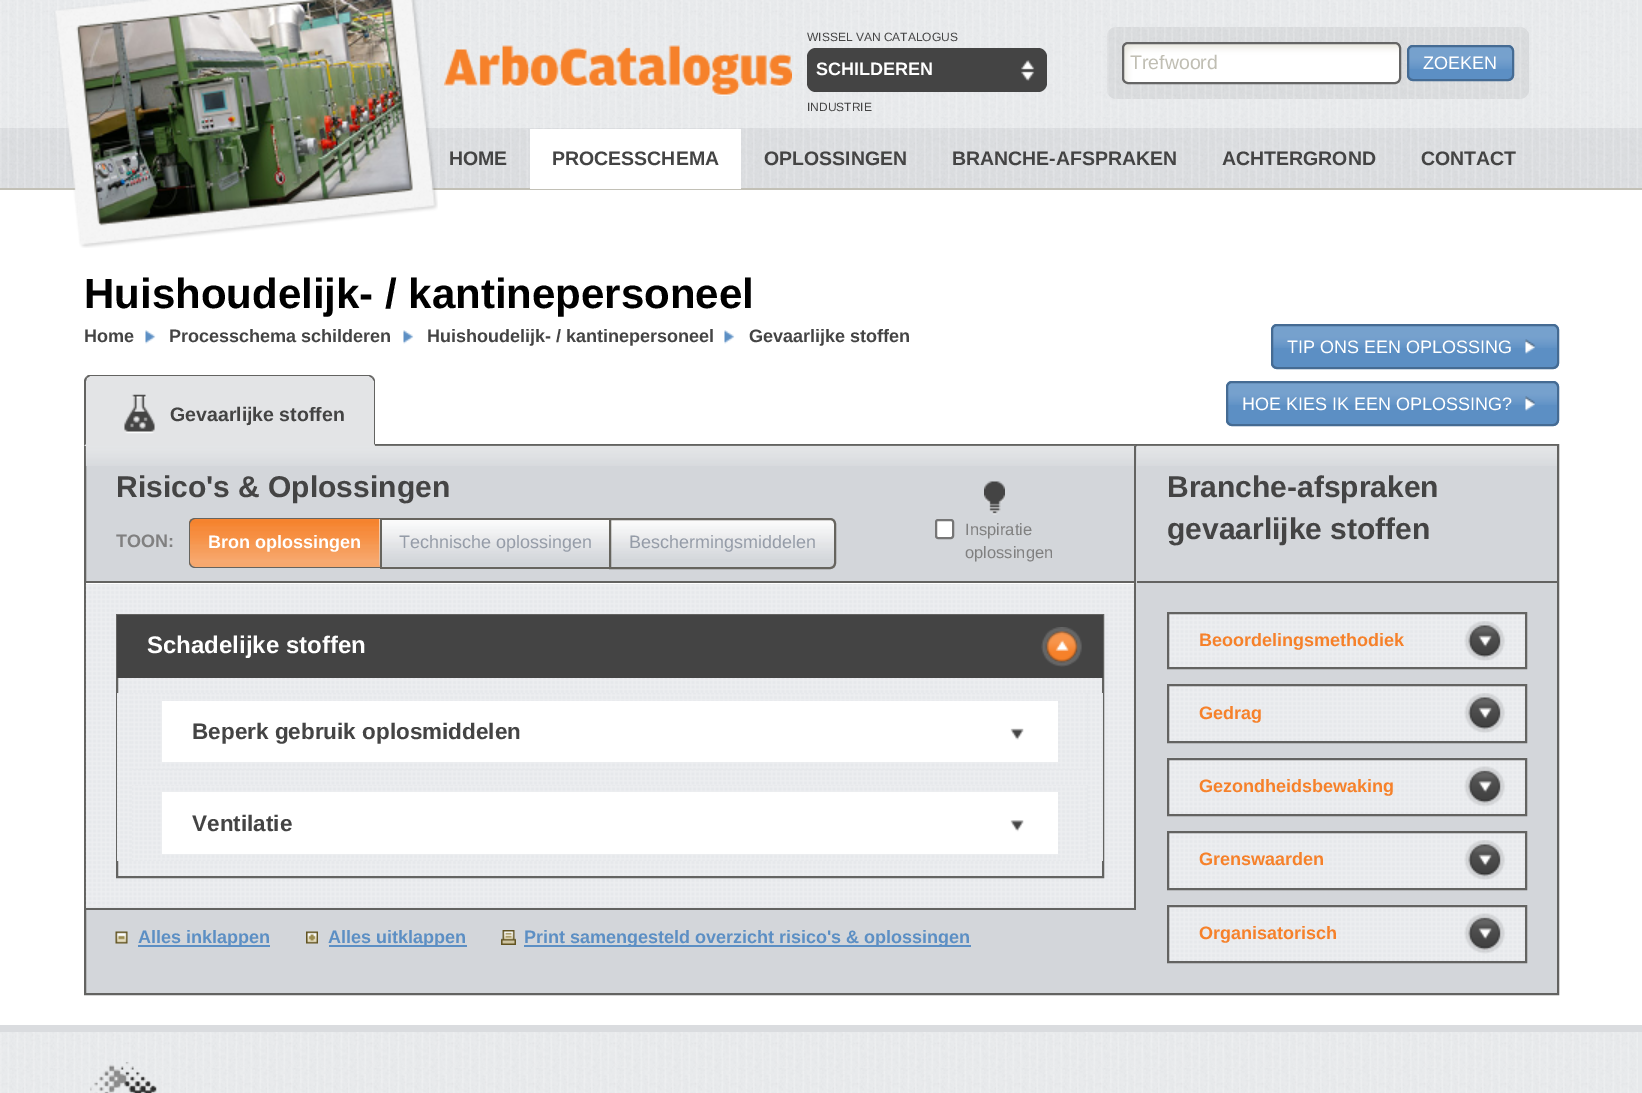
%!PS
<< /PageSize [1642 1093] >> setpagedevice
/rgb { 3 { 255 div 3 1 roll } repeat setrgbcolor } def
/font { [ exch dup neg 0 0 3 -1 roll 0 0 ] selectfont } def
/text { moveto show } def
/roundrect { 5 dict begin { /r /h /w /y /x } { exch def } forall
  x r add y moveto x w add y 2 copy h add r arct x w add y h add x 1 index r arct
  x y h add x y r arct x y 2 copy exch w add exch r arct closepath end } def
/picture { 5 dict begin { /h /w /y /x /name } { exch def } forall
  gsave x y translate w h scale
  w h 8 [w 0 0 h 0 0] name (r) file false 3 colorimage grestore end } def
0 1093 translate 1 -1 scale
4 setmiterlimit
255 255 255 rgb
0 0 1642 1093 rectfill
231 233 235 rgb
0 0 1642 128 rectfill
(img_01.rgb) 0 0 1638 128 picture
217 219 222 rgb
0 128 1642 60 rectfill
(img_08.rgb) 0 128 1642 60 picture
194 192 182 rgb
0 188 1642 2 rectfill
(img_02.rgb) 54 0 384 248 picture
(img_03.rgb) 444 45 348 51 picture
68 68 68 rgb
807 48 240 44 9 roundrect fill
(img_04.rgb) 1021 60 14 21 picture
216 218 220 rgb
1107 27 422 72 9 roundrect fill
(img_05.rgb) 1107 27 421 72 picture
(img_06.rgb) 1123 43 278 41 picture
101 101 101 rgb
2 setlinewidth
1123 43 277 40 5 roundrect stroke
92 143 196 rgb
1407 45 107 36 6 roundrect fill
(img_07.rgb) 1407 46 107 23 picture
69 107 147 rgb
1408 46 105 34 5 roundrect stroke
255 255 255 rgb
530 129 211 60 rectfill
(img_09.rgb) 145 330 11 14 picture
(img_10.rgb) 403 330 11 14 picture
(img_10.rgb) 724 330 11 14 picture
92 143 196 rgb
1271 324 288 45 6 roundrect fill
(img_11.rgb) 1271 325 287 23 picture
69 107 147 rgb
1272 325 286 43 5 roundrect stroke
(img_12.rgb) 1525 339 10 15 picture
92 143 196 rgb
1226 381 333 45 6 roundrect fill
(img_13.rgb) 1226 382 332 23 picture
69 107 147 rgb
1227 382 331 43 5 roundrect stroke
(img_12.rgb) 1525 396 10 15 picture
211 214 218 rgb
85 445 moveto 1473 0 rlineto 0 549 rlineto -1473 0 rlineto closepath gsave fill grestore
99 99 97 rgb
stroke
(img_15.rgb) 85 445 1051 21 picture
227 228 230 rgb
90 375 moveto 279 0 rlineto 3.5 0 6 2.5 6 6 rcurveto 0 65 rlineto -291 0 rlineto 0 -65 rlineto 0 -3.5 2.5 -6 6 -6 rcurveto closepath fill
99 99 97 rgb
90 375 moveto -2 0 -3 1 -4 2 rcurveto 1 1 rlineto 3 -2 rlineto 279 0 rlineto 3 2 rlineto 1 -1 rlineto -1 -1 -3 -2 -4 -2 rcurveto closepath fill
375 446 moveto 0 -65 rlineto 0 -1 -1 -3 -2 -4 rcurveto -1 1 rlineto 2 3 rlineto 0 63 rlineto closepath fill
227 228 230 rgb
375 446 moveto -291 0 rlineto 2 -2 rlineto 288 0 rlineto closepath fill
99 99 97 rgb
84 446 moveto 2 -2 rlineto 0 -63 rlineto 1 -3 rlineto -1 -1 rlineto -1 1 -2 3 -2 4 rcurveto closepath fill
(img_14.rgb) 124 394 31 40 picture
1134 446 2 136 rectfill
255 255 255 rgb
86 583 1050 1 rectfill
99 99 97 rgb
1134 582 2 326 rectfill
86 581 1050 2 rectfill
247 169 111 rgb
196 519 moveto 184 0 rlineto 0 48 rlineto -184 0 rlineto -3 0 -5 -2 -5 -5 rcurveto 0 -38 rlineto 0 -3 2 -5 5 -5 rcurveto closepath fill
(img_16.rgb) 189 519 191 47 picture
102 100 94 rgb
195 518 moveto 185 0 rlineto 0 50 rlineto -185 0 rlineto -3 0 -6 -2 -6 -6 rcurveto 0 -38 rlineto 0 -4 3 -6 6 -6 rcurveto closepath 195 519 moveto 185 0 rlineto 0 48 rlineto -185 0 rlineto -2 0 -5 -2 -5 -5 rcurveto 0 -38 rlineto 0 -3 3 -5 5 -5 rcurveto closepath eofill
(img_17.rgb) 379 519 230 47 picture
380 518 229 2 rectfill
380 567 229 2 rectfill
380 518 2 51 rectfill
(img_18.rgb) 611 519 225 40 picture
610 519 moveto 220 0 rlineto 3 0 5 2 5 5 rcurveto 0 39 rlineto 0 3 -2 5 -5 5 rcurveto -220 0 rlineto closepath stroke
(img_19.rgb) 984 481 21 34 picture
255 255 255 rgb
936 520 17 18 2 roundrect gsave fill grestore
118 118 118 rgb
stroke
230 232 235 rgb
86 584 1048 324 rectfill
(img_20.rgb) 85 584 1049 323 picture
118 678 984 198 rectfill
(img_21.rgb) 118 678 984 198 picture
99 99 97 rgb
117 615 986 262 rectstroke
68 68 68 rgb
117 615 986 63 rectfill
(img_22.rgb) 1041 627 41 40 picture
230 232 235 rgb
117 693 986 168 rectfill
(img_23.rgb) 117 693 985 168 picture
132 693 956 77 rectfill
(img_24.rgb) 132 693 955 76 picture
255 255 255 rgb
162 701 896 61 rectfill
(img_25.rgb) 1010 728 14 12 picture
230 232 235 rgb
132 785 956 76 rectfill
(img_26.rgb) 132 785 955 76 picture
255 255 255 rgb
162 792 896 62 rectfill
(img_27.rgb) 1010 820 14 12 picture
99 99 97 rgb
86 908 1050 2 rectfill
(img_28.rgb) 115 931 13 13 picture
92 143 196 rgb
138 945 132 2 rectfill
(img_29.rgb) 306 931 12 13 picture
329 945 138 2 rectfill
(img_30.rgb) 501 930 15 15 picture
524 945 447 2 rectfill
(img_31.rgb) 1137 445 420 21 picture
99 99 97 rgb
1137 581 420 2 rectfill
230 232 235 rgb
1169 614 356 53 rectfill
(img_32.rgb) 1169 614 356 53 picture
99 99 97 rgb
1168 613 358 55 rectstroke
(img_33.rgb) 1464 621 41 40 picture
230 232 235 rgb
1169 686 356 55 rectfill
(img_34.rgb) 1169 686 356 55 picture
99 99 97 rgb
1168 685 358 57 rectstroke
(img_33.rgb) 1464 693 41 40 picture
230 232 235 rgb
1169 760 356 54 rectfill
(img_35.rgb) 1167 757 360 57 picture
99 99 97 rgb
1168 759 358 56 rectstroke
(img_36.rgb) 1464 766 41 41 picture
230 232 235 rgb
1169 833 356 55 rectfill
(img_34.rgb) 1169 833 356 55 picture
99 99 97 rgb
1168 832 358 57 rectstroke
(img_33.rgb) 1464 840 41 40 picture
230 232 235 rgb
1169 907 356 54 rectfill
(img_35.rgb) 1167 904 360 57 picture
99 99 97 rgb
1168 906 358 56 rectstroke
(img_36.rgb) 1464 913 41 41 picture
231 233 235 rgb
0 1032 1642 61 rectfill
(img_37.rgb) 0 1032 1638 61 picture
218 220 223 rgb
0 1025 1642 7 rectfill
(img_38.rgb) 89 1062 68 31 picture
/LiberationSans-Regular 12 font
68 68 68 rgb
(WISSEL VAN CATALOGUS) 807 41 text
/LiberationSans-Bold 18 font
255 255 255 rgb
(SCHILDEREN) 816 75 text
/LiberationSans-Regular 12 font
68 68 68 rgb
(INDUSTRIE) 807 111 text
/LiberationSans-Regular 19.5 font
192 190 179 rgb
(Trefwoord) 1130 69 text
/LiberationSans-Regular 18 font
255 255 255 rgb
(ZOEKEN) 1423 69 text
/LiberationSans-Bold 19.5 font
68 68 68 rgb
(HOME) 449 165 text
(PROCESSCHEMA) 552 165 text
(OPLOSSINGEN) 764 165 text
(BRANCHE-AFSPRAKEN) 952 165 text
(ACHTERGROND) 1222 165 text
(CONTACT) 1421 165 text
/LiberationSans-Bold 42 font
0 0 0 rgb
(Huishoudelijk- / kantinepersoneel) 84 308 text
/LiberationSans-Bold 18 font
68 68 68 rgb
(Home) 84 342 text
(Processchema schilderen) 169 342 text
(Huishoudelijk- / kantinepersoneel) 427 342 text
(Gevaarlijke stoffen) 749 342 text
/LiberationSans-Regular 18 font
255 255 255 rgb
(TIP ONS EEN OPLOSSING) 1287 353 text
(HOE KIES IK EEN OPLOSSING?) 1242 410 text
/LiberationSans-Bold 19.5 font
68 68 68 rgb
(Gevaarlijke stoffen) 170 421 text
/LiberationSans-Bold 30 font
(Risico's & Oplossingen) 116 497 text
gsave
116 518 720 51 rectclip
/LiberationSans-Bold 18 font
128 128 128 rgb
(TOON:) 116 547 text
grestore
/LiberationSans-Bold 18 font
255 255 255 rgb
(Bron oplossingen) 208 548 text
/LiberationSans-Regular 18 font
149 156 168 rgb
(Technische oplossingen) 399 548 text
(Beschermingsmiddelen) 629 548 text
/LiberationSans-Regular 16.5 font
128 128 128 rgb
(Inspiratie) 965 535 text
(oplossingen) 965 558 text
/LiberationSans-Bold 24 font
255 255 255 rgb
(Schadelijke stoffen) 147 653 text
/LiberationSans-Bold 22.5 font
68 68 68 rgb
(Beperk gebruik oplosmiddelen) 192 739 text
(Ventilatie) 192 831 text
/LiberationSans-Bold 18 font
92 143 196 rgb
(Alles inklappen) 138 943 text
(Alles uitklappen) 328 943 text
(Print samengesteld overzicht risico's & oplossingen) 524 943 text
/LiberationSans-Bold 30 font
68 68 68 rgb
(Branche-afspraken) 1167 497 text
(gevaarlijke stoffen) 1167 539 text
/LiberationSans-Bold 18 font
246 129 42 rgb
(Beoordelingsmethodiek) 1199 646 text
(Gedrag) 1199 719 text
(Gezondheidsbewaking) 1199 792 text
(Grenswaarden) 1199 865 text
(Organisatorisch) 1199 939 text
showpage
